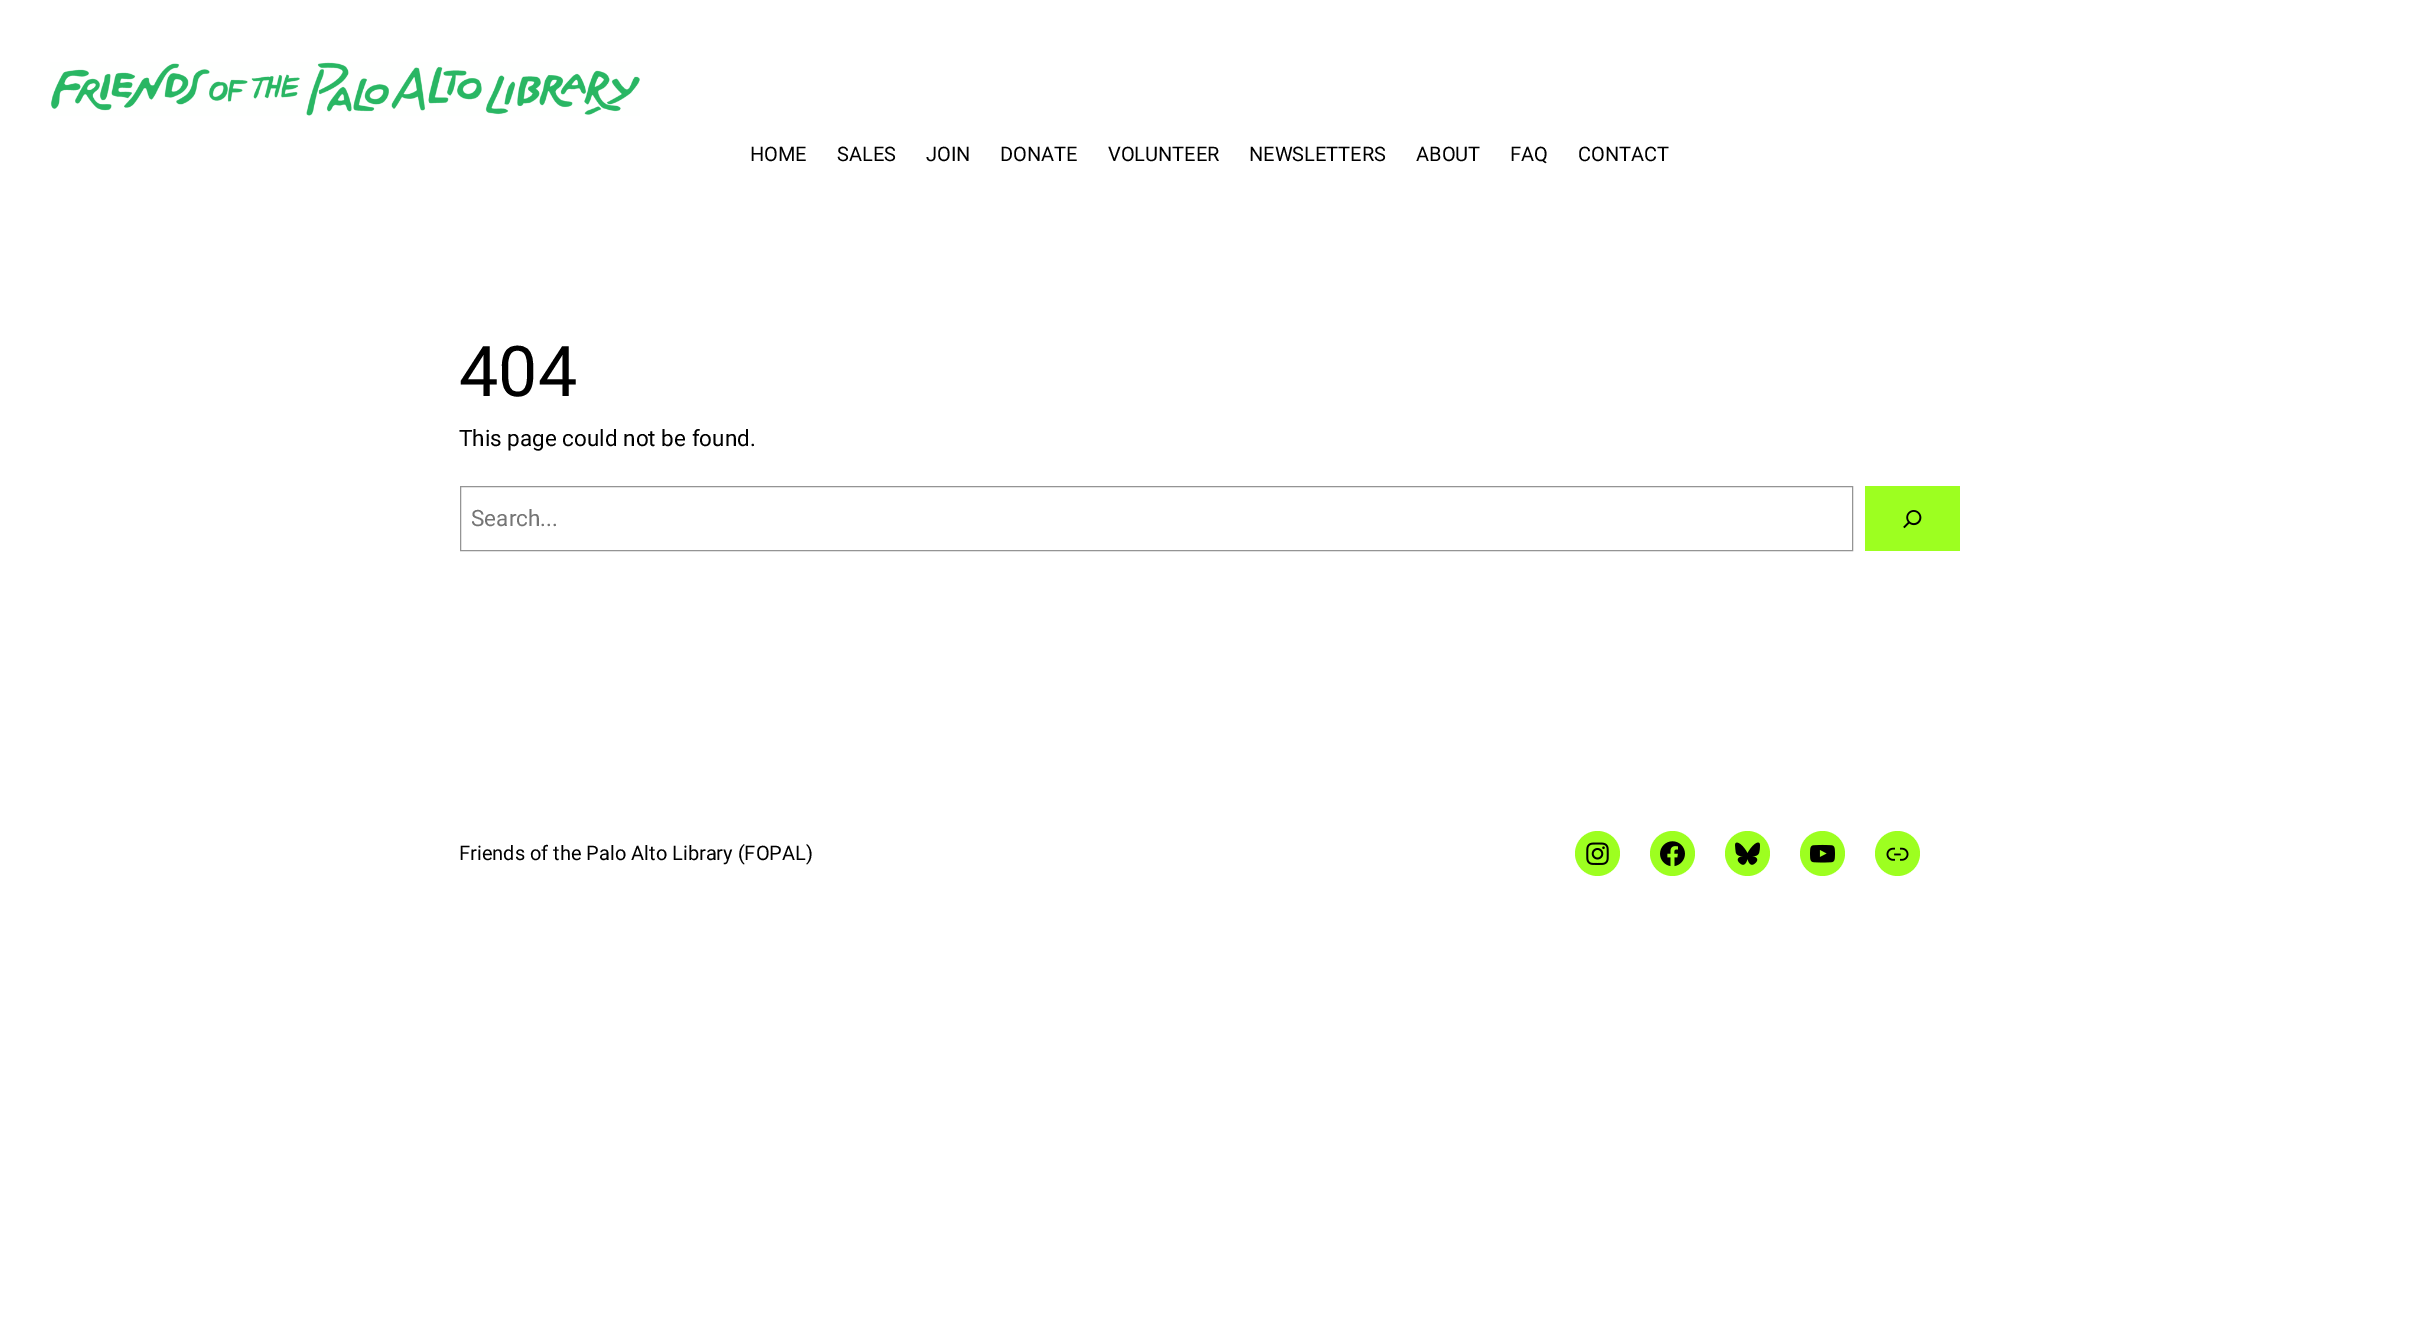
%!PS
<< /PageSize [2418 1322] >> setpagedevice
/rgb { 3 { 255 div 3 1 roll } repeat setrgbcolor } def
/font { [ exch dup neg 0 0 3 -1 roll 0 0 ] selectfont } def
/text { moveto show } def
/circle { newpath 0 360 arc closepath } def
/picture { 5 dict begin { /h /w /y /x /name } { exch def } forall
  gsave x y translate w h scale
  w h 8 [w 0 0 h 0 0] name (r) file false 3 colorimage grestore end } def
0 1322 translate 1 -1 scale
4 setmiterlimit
255 255 255 rgb
0 0 2418 1322 rectfill
(img_01.rgb) 50 62 590 54 picture
148 148 148 rgb
460.5 486.5 1392 64 rectstroke
157 255 32 rgb
1865 486 95 65 rectfill
(img_02.rgb) 1903 510 19 19 picture
1597.5 853.5 22.5 circle fill
(img_03.rgb) 1586 842 23 23 picture
1672.5 853.5 22.5 circle fill
(img_04.rgb) 1660 841 25 26 picture
1747.5 853.5 22.5 circle fill
(img_05.rgb) 1735 842 25 23 picture
1822.5 853.5 22.5 circle fill
(img_06.rgb) 1810 844 25 19 picture
1897.5 853.5 22.5 circle fill
(img_07.rgb) 1886 847 23 14 picture
/Roboto-Regular 20 font
0 0 0 rgb
(HOME) 750 161 text
(SALES) 837 161 text
(JOIN) 926 161 text
(DONATE) 1000 161 text
(VOLUNTEER) 1108 161 text
(NEWSLETTERS) 1249 161 text
(ABOUT) 1416 161 text
(FAQ) 1510 161 text
(CONTACT) 1578 161 text
/Roboto-Regular 70 font
(404) 459 396 text
/Roboto-Regular 22.5 font
(This page could not be found.) 459 446 text
117 117 117 rgb
(Search...) 471 526 text
/Roboto-Regular 20 font
0 0 0 rgb
(Friends of the Palo Alto Library \(FOPAL\)) 459 860 text
showpage
